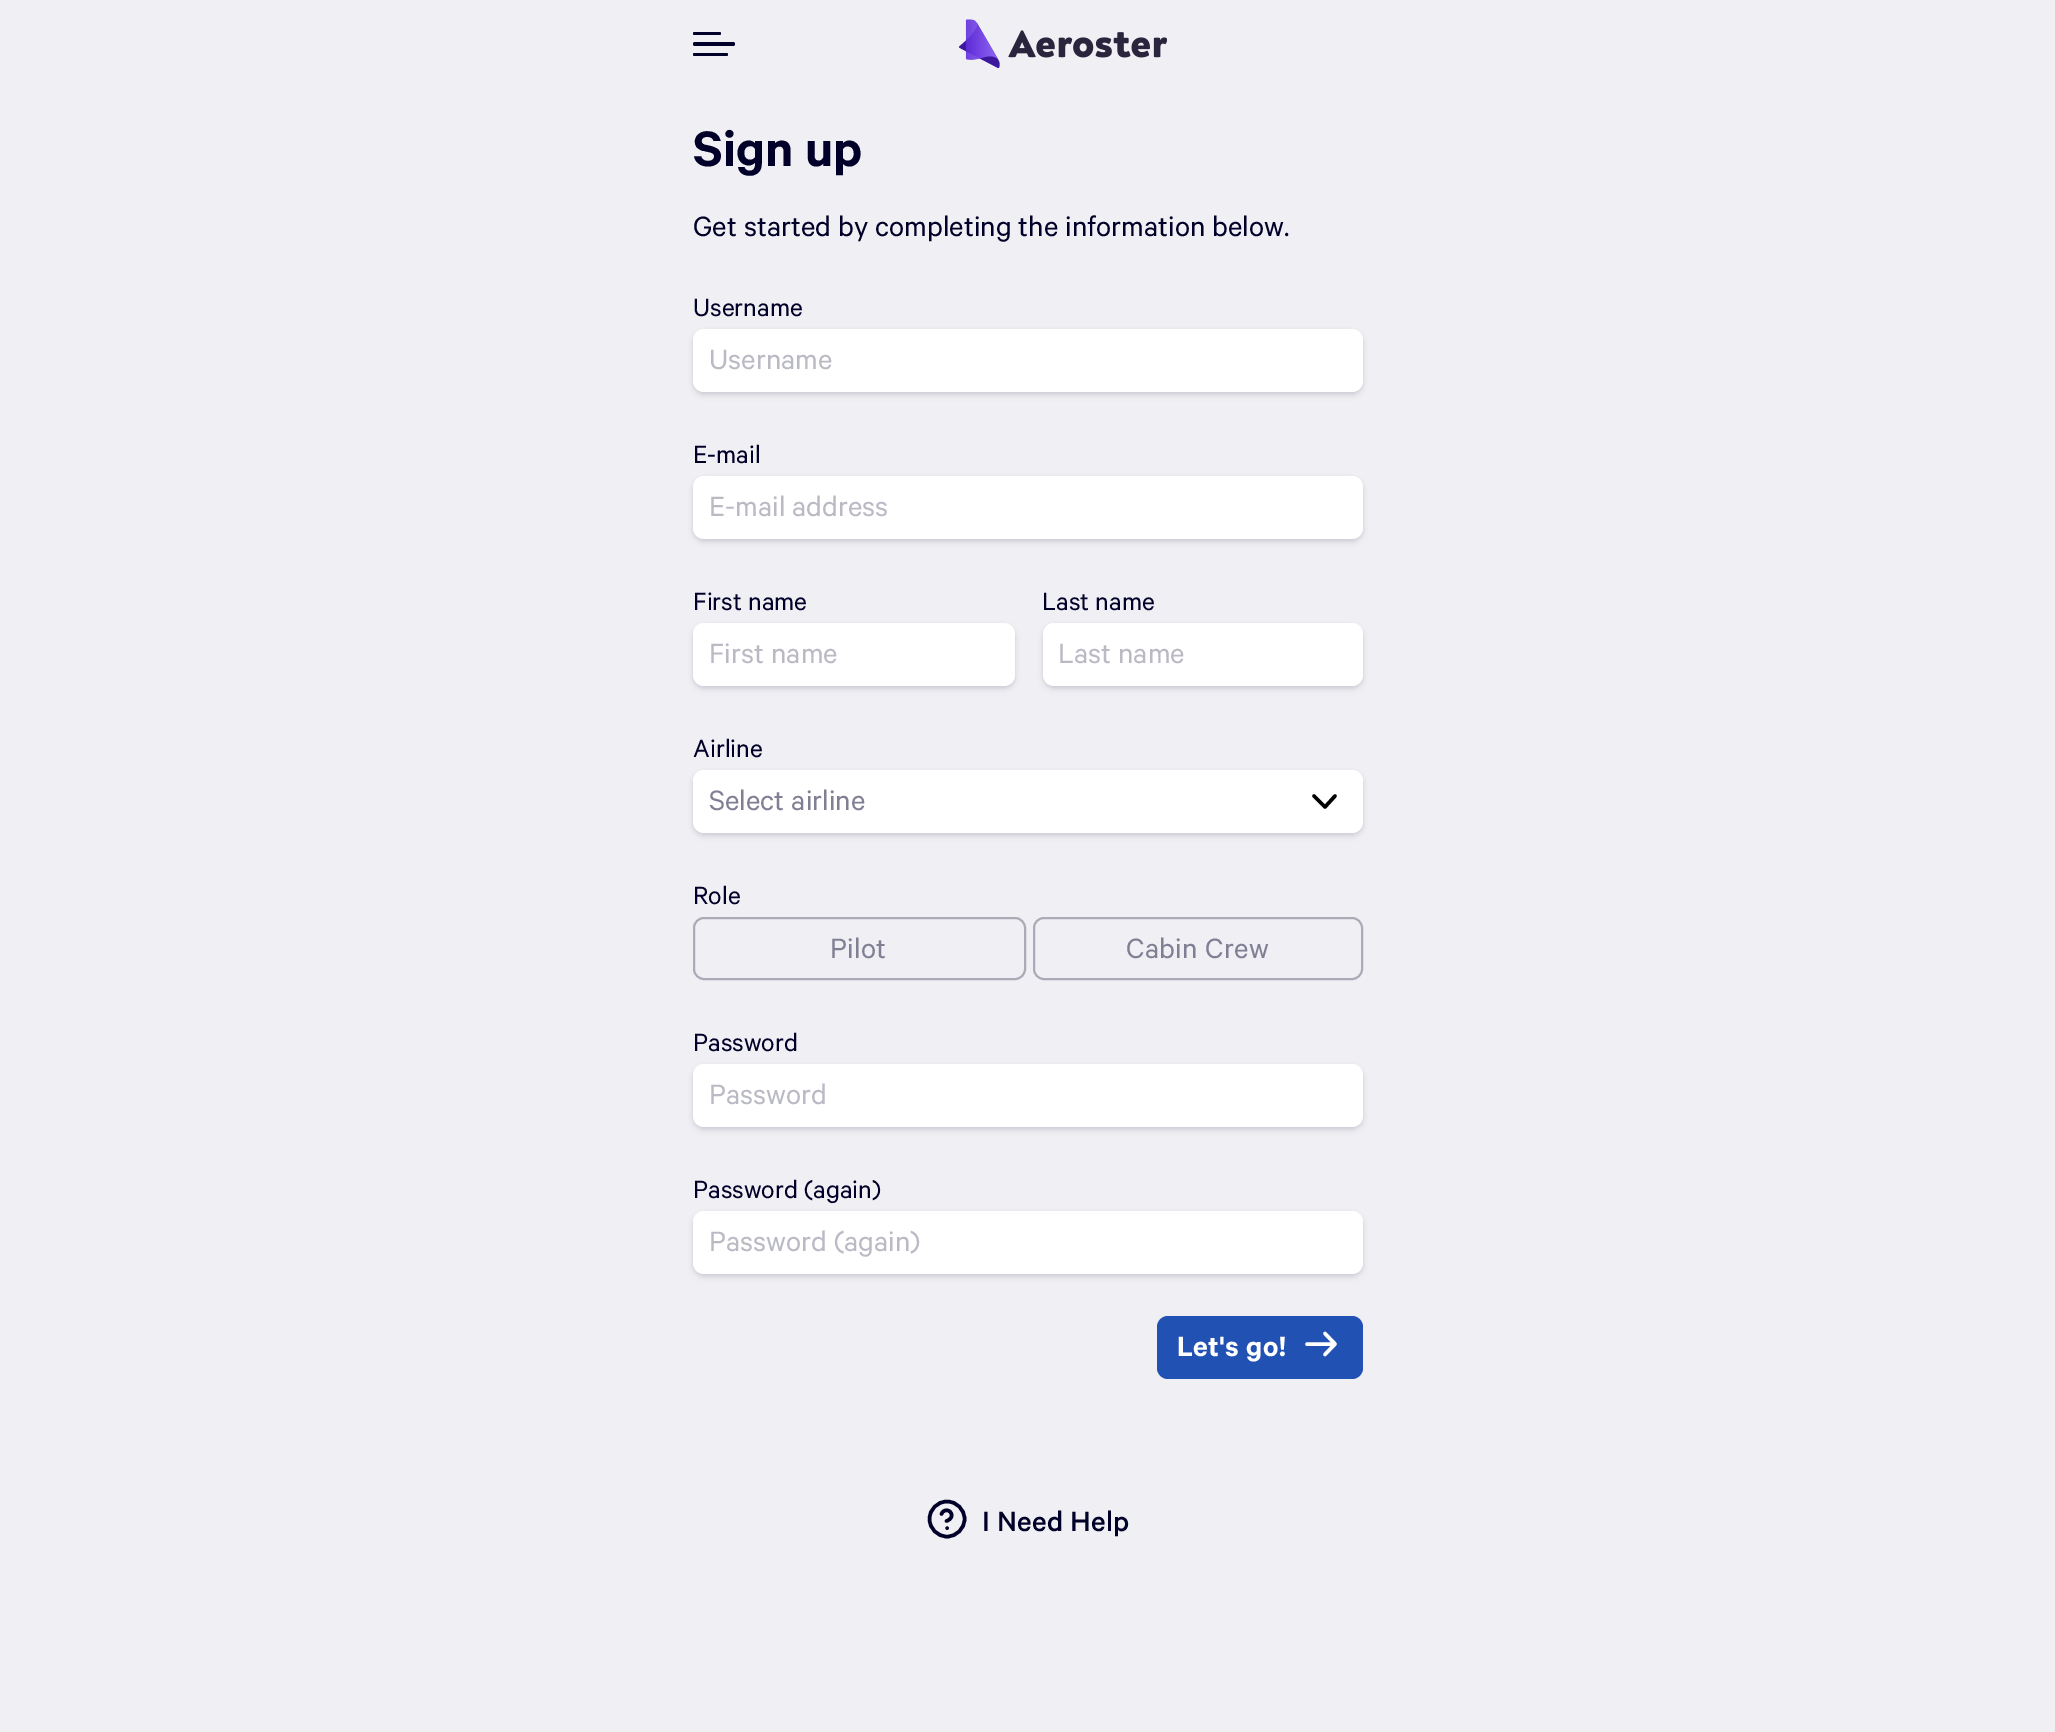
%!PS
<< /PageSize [2055 1732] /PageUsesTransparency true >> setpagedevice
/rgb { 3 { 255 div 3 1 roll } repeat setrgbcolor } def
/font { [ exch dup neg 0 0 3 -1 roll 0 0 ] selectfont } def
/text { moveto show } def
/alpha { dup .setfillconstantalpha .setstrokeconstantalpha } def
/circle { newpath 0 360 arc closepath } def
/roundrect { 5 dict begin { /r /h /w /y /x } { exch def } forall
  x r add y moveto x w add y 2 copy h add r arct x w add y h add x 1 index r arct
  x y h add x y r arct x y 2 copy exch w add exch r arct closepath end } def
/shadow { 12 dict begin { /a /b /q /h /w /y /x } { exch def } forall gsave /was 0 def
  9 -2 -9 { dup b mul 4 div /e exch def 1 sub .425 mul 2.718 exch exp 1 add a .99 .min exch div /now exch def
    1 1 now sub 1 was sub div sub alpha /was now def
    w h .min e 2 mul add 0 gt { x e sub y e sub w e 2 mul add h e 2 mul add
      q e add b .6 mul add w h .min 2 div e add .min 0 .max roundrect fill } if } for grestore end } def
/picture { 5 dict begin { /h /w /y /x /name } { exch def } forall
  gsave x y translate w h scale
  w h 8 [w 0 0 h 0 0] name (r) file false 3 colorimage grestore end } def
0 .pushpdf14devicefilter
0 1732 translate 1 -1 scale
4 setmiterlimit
240 240 244 rgb
0 0 2055 1732 rectfill
1 0 40 rgb
693 32 28 3 1.5 roundrect fill
693 42 42 4 2 roundrect fill
693 53 35 3 1.5 roundrect fill
(img_01.rgb) 959 19 208 49 picture
693 333 670 63 11 3.5 0.05 shadow
693 331 670 63 11 2 0.1 shadow
255 255 255 rgb
693 329 670 63 11 roundrect fill
1 0 40 rgb
693 480 670 63 11 3.5 0.05 shadow
693 478 670 63 11 2 0.1 shadow
255 255 255 rgb
693 476 670 63 11 roundrect fill
1 0 40 rgb
693 627 322 63 11 3.5 0.05 shadow
693 625 322 63 11 2 0.1 shadow
255 255 255 rgb
693 623 322 63 11 roundrect fill
1 0 40 rgb
1043 627 320 63 11 3.5 0.05 shadow
1043 625 320 63 11 2 0.1 shadow
255 255 255 rgb
1043 623 320 63 11 roundrect fill
1 0 40 rgb
693 774 670 63 11 3.5 0.05 shadow
693 772 670 63 11 2 0.1 shadow
255 255 255 rgb
693 770 670 63 11 roundrect fill
0 0 0 rgb
3.5 setlinewidth
1 setlinecap
1 setlinejoin
1314 796 moveto 11 11 rlineto 10 -11 rlineto stroke
171 171 184 rgb
2 setlinewidth
0 setlinecap
0 setlinejoin
694 918 331 61 10 roundrect stroke
1034 918 328 61 10 roundrect stroke
1 0 40 rgb
693 1068 670 63 11 3.5 0.05 shadow
693 1066 670 63 11 2 0.1 shadow
255 255 255 rgb
693 1064 670 63 11 roundrect fill
1 0 40 rgb
693 1215 670 63 11 3.5 0.05 shadow
693 1213 670 63 11 2 0.1 shadow
255 255 255 rgb
693 1211 670 63 11 roundrect fill
33 82 179 rgb
1157 1316 206 63 11 roundrect fill
255 255 255 rgb
3.5 setlinewidth
1 setlinecap
1 setlinejoin
1307 1344 moveto 28 0 rlineto 1325 1333.5 moveto 10 10.5 rlineto -10 10.5 rlineto stroke
1 0 40 rgb
941.5 1514 moveto 0.5 -1.5 1.5 -2.5 2.5 -3 rcurveto 6 -3.5 12.5 6.5 2.5 10 rcurveto stroke
0 setlinecap
0 setlinejoin
947 1519 17.5 circle stroke
1 setlinecap
1 setlinejoin
947 1528 moveto 0 0 rlineto stroke
/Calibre-SemiBold 56 font
(Sign up) 693 166 text
/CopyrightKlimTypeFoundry-Regular 31.5 font
(Get started by completing the information below.) 693 236 text
/CopyrightKlimTypeFoundry-Regular 28 font
(Username) 693 316 text
/CopyrightKlimTypeFoundry-Regular 31.5 font
186 186 197 rgb
(Username) 709 369 text
/CopyrightKlimTypeFoundry-Regular 28 font
1 0 40 rgb
(E-mail) 693 463 text
/CopyrightKlimTypeFoundry-Regular 31.5 font
186 186 197 rgb
(E-mail address) 709 516 text
/CopyrightKlimTypeFoundry-Regular 28 font
1 0 40 rgb
(First name) 693 610 text
/CopyrightKlimTypeFoundry-Regular 31.5 font
186 186 197 rgb
(First name) 709 663 text
/CopyrightKlimTypeFoundry-Regular 28 font
1 0 40 rgb
(Last name) 1042 610 text
/CopyrightKlimTypeFoundry-Regular 31.5 font
186 186 197 rgb
(Last name) 1058 663 text
/CopyrightKlimTypeFoundry-Regular 28 font
1 0 40 rgb
(Airline) 693 757 text
/CopyrightKlimTypeFoundry-Regular 31.5 font
128 127 148 rgb
(Select airline) 709 810 text
/CopyrightKlimTypeFoundry-Regular 28 font
1 0 40 rgb
(Role) 693 904 text
/CopyrightKlimTypeFoundry-Regular 31.5 font
128 127 148 rgb
830 958 moveto 0.25 0 (Pilot) ashow
1126 958 moveto 0.25 0 (Cabin Crew) ashow
/CopyrightKlimTypeFoundry-Regular 28 font
1 0 40 rgb
(Password) 693 1051 text
/CopyrightKlimTypeFoundry-Regular 31.5 font
186 186 197 rgb
(Password) 709 1104 text
/CopyrightKlimTypeFoundry-Regular 28 font
1 0 40 rgb
(Password \(again\)) 693 1198 text
/CopyrightKlimTypeFoundry-Regular 31.5 font
186 186 197 rgb
(Password \(again\)) 709 1251 text
/Calibre-SemiBold 31.5 font
255 255 255 rgb
1177 1356 moveto 0.25 0 (Let's go!) ashow
/Calibre-Medium 31.5 font
1 0 40 rgb
982 1531 moveto 0.25 0 (I Need Help) ashow
.poppdf14devicefilter showpage
